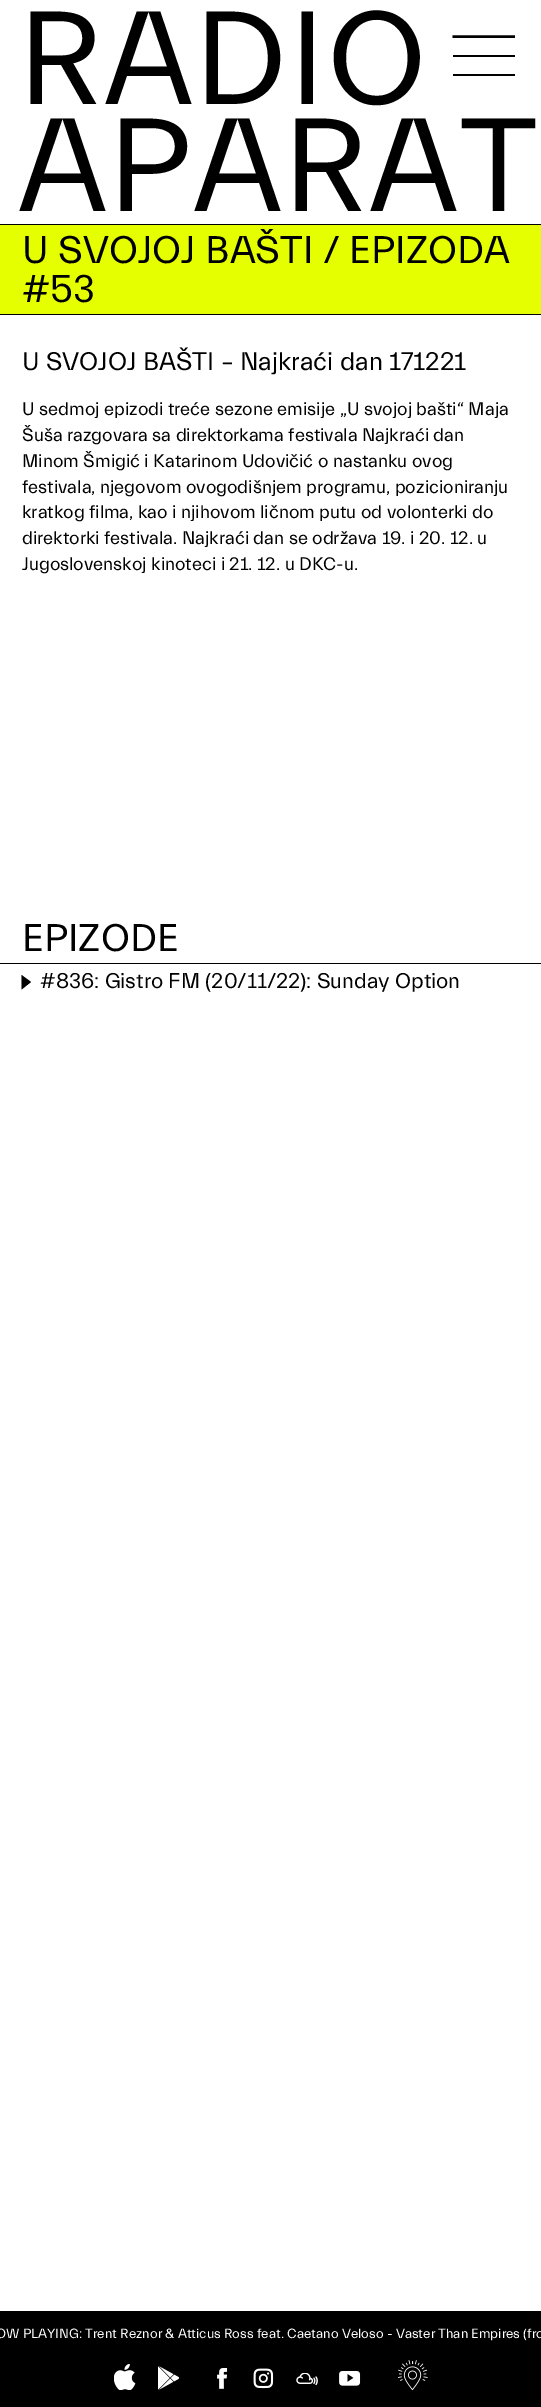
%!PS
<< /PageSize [541 2407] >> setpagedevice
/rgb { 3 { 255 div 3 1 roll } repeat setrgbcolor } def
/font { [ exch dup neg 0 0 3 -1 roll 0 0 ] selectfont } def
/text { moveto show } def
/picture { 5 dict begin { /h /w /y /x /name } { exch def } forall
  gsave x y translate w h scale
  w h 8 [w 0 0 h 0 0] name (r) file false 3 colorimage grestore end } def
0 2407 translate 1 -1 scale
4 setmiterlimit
255 255 255 rgb
0 0 541 2407 rectfill
0 0 0 rgb
0 224 541 1 rectfill
453 55 62 2 rectfill
2.4 setlinewidth
452.5 36.5 moveto 62.5 0 rlineto stroke
453 74 62 2 rectfill
230 255 0 rgb
0 225 541 89 rectfill
0 0 0 rgb
0 314 541 1 rectfill
0 963 541 1 rectfill
31 982 moveto -9.5 7.5 rlineto 0 -14.5 rlineto closepath fill
0 2311 541 96 rectfill
(img_01.rgb) 114 2364 22 26 picture
(img_02.rgb) 158 2366 21 24 picture
(img_03.rgb) 217 2368 11 21 picture
(img_04.rgb) 253 2368 21 21 picture
(img_05.rgb) 296 2373 22 12 picture
(img_06.rgb) 339 2371 22 15 picture
(img_07.rgb) 398 2360 30 30 picture
/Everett-Regular 134 font
18 104 moveto 1.5 0 (RADIO) ashow
18 211 moveto 1.5 0 (APARAT) ashow
/Everett-Regular 39 font
(U SVOJOJ BAŠTI / EPIZODA) 22 263 text
(#53) 22 302 text
/Everett-Regular 25.75 font
(U SVOJOJ BAŠTI – Najkraći dan 171221) 22 370 text
/Everett-Regular 18.4 font
(U sedmoj epizodi treće sezone emisije „U svojoj bašti“ Maja) 22 415 text
(Šuša razgovara sa direktorkama festivala Najkraći dan) 22 441 text
(Minom Šmigić i Katarinom Udovičić o nastanku ovog) 22 467 text
(festivala, njegovom ovogodišnjem programu, pozicioniranju) 22 493 text
(kratkog filma, kao i njihovom ličnom putu od volonterki do) 22 518 text
(direktorki festivala. Najkraći dan se održava 19. i 20. 12. u) 22 544 text
(Jugoslovenskoj kinoteci i 21. 12. u DKC-u.) 22 570 text
/Everett-Regular 39 font
(EPIZODE) 22 951 text
/Everett-Regular 21.6 font
(#836: Gistro FM \(20/11/22\): Sunday Option) 40 988 text
/Everett-Regular 13.55 font
255 255 255 rgb
(OW PLAYING: Trent Reznor & Atticus Ross feat. Caetano Veloso - Vaster Than Empires \(fro) -4 2338 text
showpage
